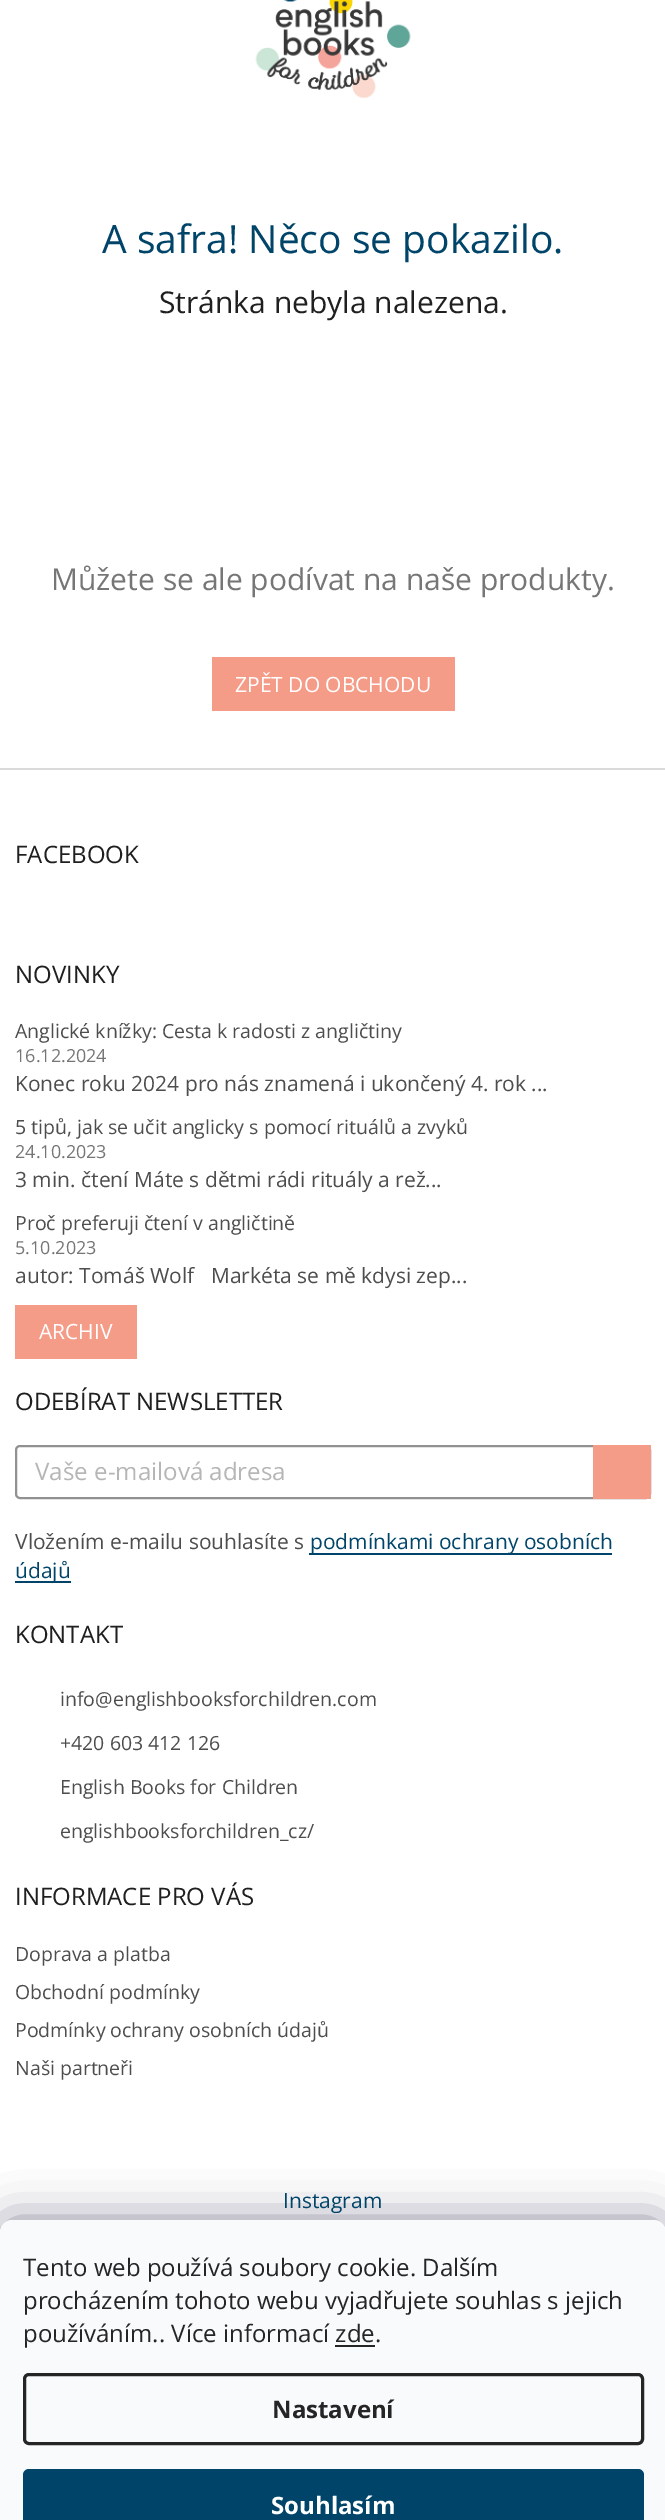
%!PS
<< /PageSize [665 2520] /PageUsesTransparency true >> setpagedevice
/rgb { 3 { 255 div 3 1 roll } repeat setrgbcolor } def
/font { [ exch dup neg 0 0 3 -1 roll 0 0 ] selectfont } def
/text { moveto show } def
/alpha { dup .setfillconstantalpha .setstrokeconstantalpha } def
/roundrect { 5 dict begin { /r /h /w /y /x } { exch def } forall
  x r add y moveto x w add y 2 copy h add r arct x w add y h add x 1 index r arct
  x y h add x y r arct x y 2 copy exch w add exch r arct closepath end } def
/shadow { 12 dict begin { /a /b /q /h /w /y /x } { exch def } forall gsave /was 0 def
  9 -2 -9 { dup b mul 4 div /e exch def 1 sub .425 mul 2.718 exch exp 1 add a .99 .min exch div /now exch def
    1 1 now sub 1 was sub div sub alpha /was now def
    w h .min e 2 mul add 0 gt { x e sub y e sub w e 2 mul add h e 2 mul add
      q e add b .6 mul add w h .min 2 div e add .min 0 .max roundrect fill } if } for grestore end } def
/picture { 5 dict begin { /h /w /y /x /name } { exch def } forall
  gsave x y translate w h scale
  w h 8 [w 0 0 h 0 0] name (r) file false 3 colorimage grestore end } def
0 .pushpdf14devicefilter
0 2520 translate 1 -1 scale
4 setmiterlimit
255 255 255 rgb
0 0 665 2520 rectfill
(img_01.rgb) 255 0 156 99 picture
244 156 136 rgb
212 657 243 54 rectfill
218 218 218 rgb
0 768 665 2 rectfill
244 156 136 rgb
15 1305 122 54 rectfill
145 145 145 rgb
2 setlinewidth
16 1446 634 52 4 roundrect stroke
244 156 136 rgb
593 1445 58 54 rectfill
0 69 105 rgb
309 1553 303 2 rectfill
15 1581 56 2 rectfill
27 25 57 rgb
0 2220 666 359 12 22.5 0.5 shadow
248 250 251 rgb
12 2220 moveto 642 0 rlineto 6.5 0 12 5.5 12 12 rcurveto 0 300 rlineto -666 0 rlineto 0 -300 rlineto 0 -6.5 5.5 -12 12 -12 rcurveto closepath fill
37 37 37 rgb
335 2345 40 2 rectfill
3 setlinewidth
24.5 2374.5 618 69 4.5 roundrect stroke
0 69 105 rgb
23 2469 621 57 6 roundrect fill
/OpenSans-Regular 39 font
(A safra! Něco se pokazilo.) 102 253 text
/OpenSans-Regular 30 font
31 31 31 rgb
(Stránka nebyla nalezena.) 159 313 text
118 118 118 rgb
(Můžete se ale podívat na naše produkty.) 51 590 text
/OpenSans-Regular 21 font
255 255 255 rgb
(ZPĚT DO OBCHODU) 235 692 text
/OpenSans-Regular 24 font
31 31 31 rgb
(FACEBOOK) 15 863 text
(NOVINKY) 15 983 text
/OpenSans-Regular 19.5 font
77 77 77 rgb
(Anglické knížky: Cesta k radosti z angličtiny) 15 1038 text
/OpenSans-Regular 18 font
118 118 118 rgb
(16.12.2024) 15 1062 text
/OpenSans-Regular 21 font
77 77 77 rgb
(Konec roku 2024 pro nás znamená i ukončený 4. rok ...) 15 1091 text
/OpenSans-Regular 19.5 font
(5 tipů, jak se učit anglicky s pomocí rituálů a zvyků) 15 1134 text
/OpenSans-Regular 18 font
118 118 118 rgb
(24.10.2023) 15 1158 text
/OpenSans-Regular 21 font
77 77 77 rgb
(3 min. čtení Máte s dětmi rádi rituály a rež...) 15 1187 text
/OpenSans-Regular 19.5 font
(Proč preferuji čtení v angličtině) 15 1230 text
/OpenSans-Regular 18 font
118 118 118 rgb
(5.10.2023) 15 1254 text
/OpenSans-Regular 21 font
77 77 77 rgb
(autor: Tomáš Wolf   Markéta se mě kdysi zep...) 15 1283 text
255 255 255 rgb
(ARCHIV) 39 1339 text
/OpenSans-Regular 24 font
31 31 31 rgb
(ODEBÍRAT NEWSLETTER) 15 1410 text
/OpenSans-Regular 24.1 font
182 182 182 rgb
(Vaše e-mailová adresa) 35 1480 text
/OpenSans-Regular 21 font
77 77 77 rgb
(Vložením e-mailu souhlasíte s) 15 1549 text
0 69 105 rgb
(podmínkami ochrany osobních) 310 1549 text
(údajů) 15 1578 text
/OpenSans-Regular 24 font
31 31 31 rgb
(KONTAKT) 15 1643 text
/OpenSans-Regular 19.5 font
77 77 77 rgb
(info@englishbooksforchildren.com) 60 1706 text
(+420 603 412 126) 60 1750 text
(English Books for Children) 60 1794 text
(englishbooksforchildren_cz/) 60 1838 text
/OpenSans-Regular 24 font
31 31 31 rgb
(INFORMACE PRO VÁS) 15 1905 text
/OpenSans-Regular 19.5 font
77 77 77 rgb
(Doprava a platba) 15 1961 text
(Obchodní podmínky) 15 1999 text
(Podmínky ochrany osobních údajů) 15 2037 text
(Naši partneři) 15 2075 text
/OpenSans-Regular 21 font
0 69 105 rgb
(Instagram) 283 2208 text
/OpenSans-Regular 24 font
37 37 37 rgb
(Tento web používá soubory cookie. Dalším) 23 2276 text
(procházením tohoto webu vyjadřujete souhlas s jejich) 23 2309 text
(používáním.. Více informací zde.) 23 2342 text
/OpenSans-Bold 24 font
(Nastavení) 272 2418 text
255 255 255 rgb
(Souhlasím) 271 2514 text
.poppdf14devicefilter showpage
